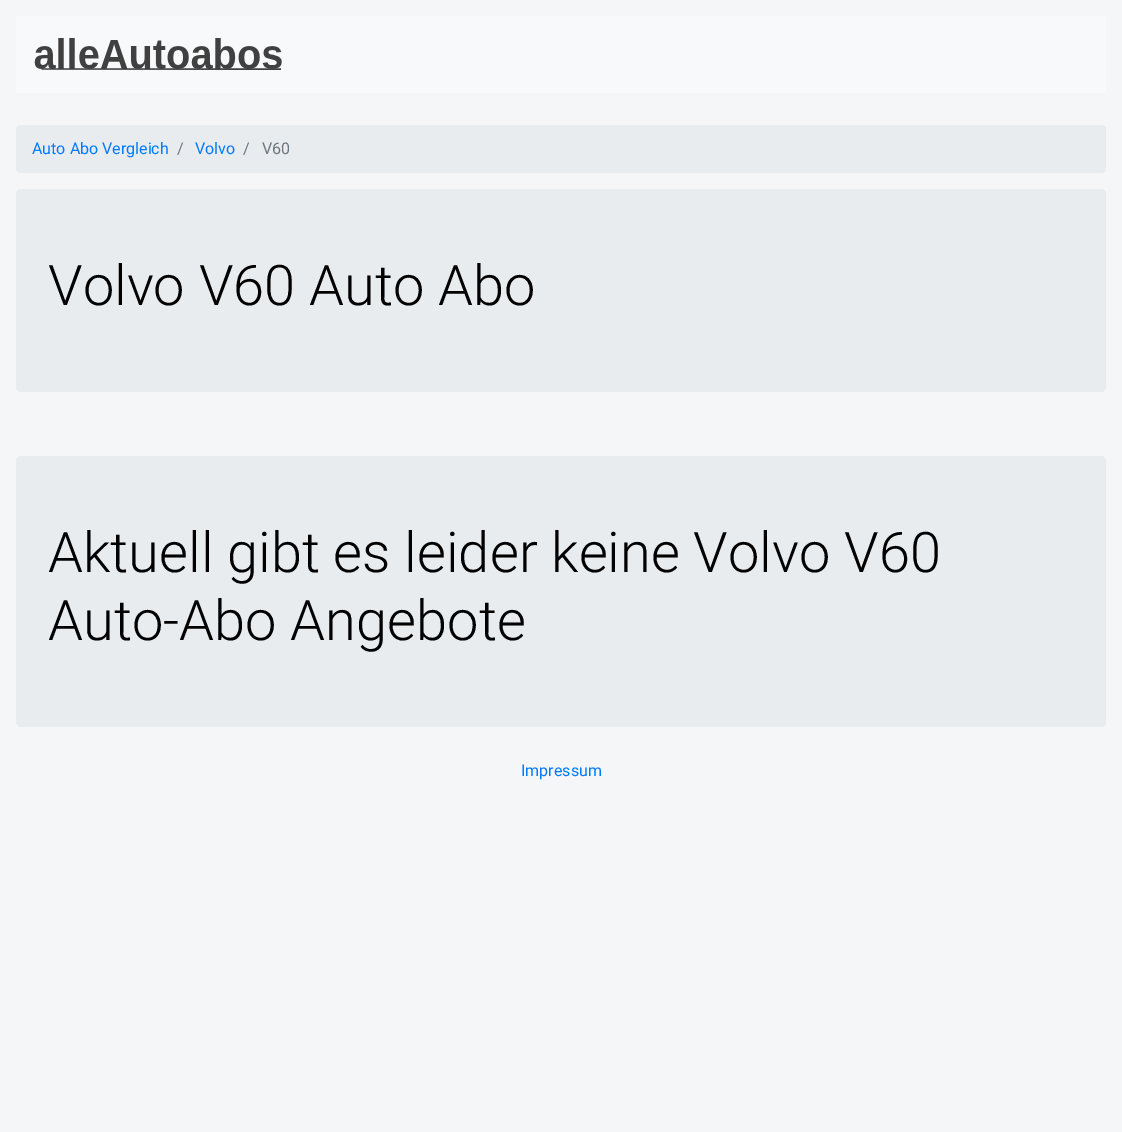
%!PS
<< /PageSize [1122 1132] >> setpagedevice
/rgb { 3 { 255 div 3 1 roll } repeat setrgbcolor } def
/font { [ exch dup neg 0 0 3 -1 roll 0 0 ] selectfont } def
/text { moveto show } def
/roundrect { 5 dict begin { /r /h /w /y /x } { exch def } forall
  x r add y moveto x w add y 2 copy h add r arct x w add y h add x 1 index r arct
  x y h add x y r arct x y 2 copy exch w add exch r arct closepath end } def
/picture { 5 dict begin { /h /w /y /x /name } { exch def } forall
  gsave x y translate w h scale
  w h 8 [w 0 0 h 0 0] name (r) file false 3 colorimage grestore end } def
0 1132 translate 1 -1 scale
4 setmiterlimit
244 246 247 rgb
0 0 1122 1132 rectfill
248 249 250 rgb
16 16 1090 77 rectfill
(img_01.rgb) 34 38 248 32 picture
233 236 239 rgb
16 125 1090 48 4 roundrect fill
16 189 1090 203 5 roundrect fill
16 456 1090 271 5 roundrect fill
/Roboto-Regular 16 font
0 123 255 rgb
(Auto Abo Vergleich) 32 154 text
108 117 125 rgb
(/) 177 154 text
0 123 255 rgb
(Volvo) 195 154 text
108 117 125 rgb
(/) 243 154 text
(V60) 262 154 text
/Roboto-Light 56 font
0 0 0 rgb
(Volvo V60 Auto Abo) 48 305 text
(Aktuell gibt es leider keine Volvo V60) 48 572 text
(Auto-Abo Angebote) 48 640 text
/Roboto-Regular 16 font
0 123 255 rgb
(Impressum) 521 776 text
showpage
